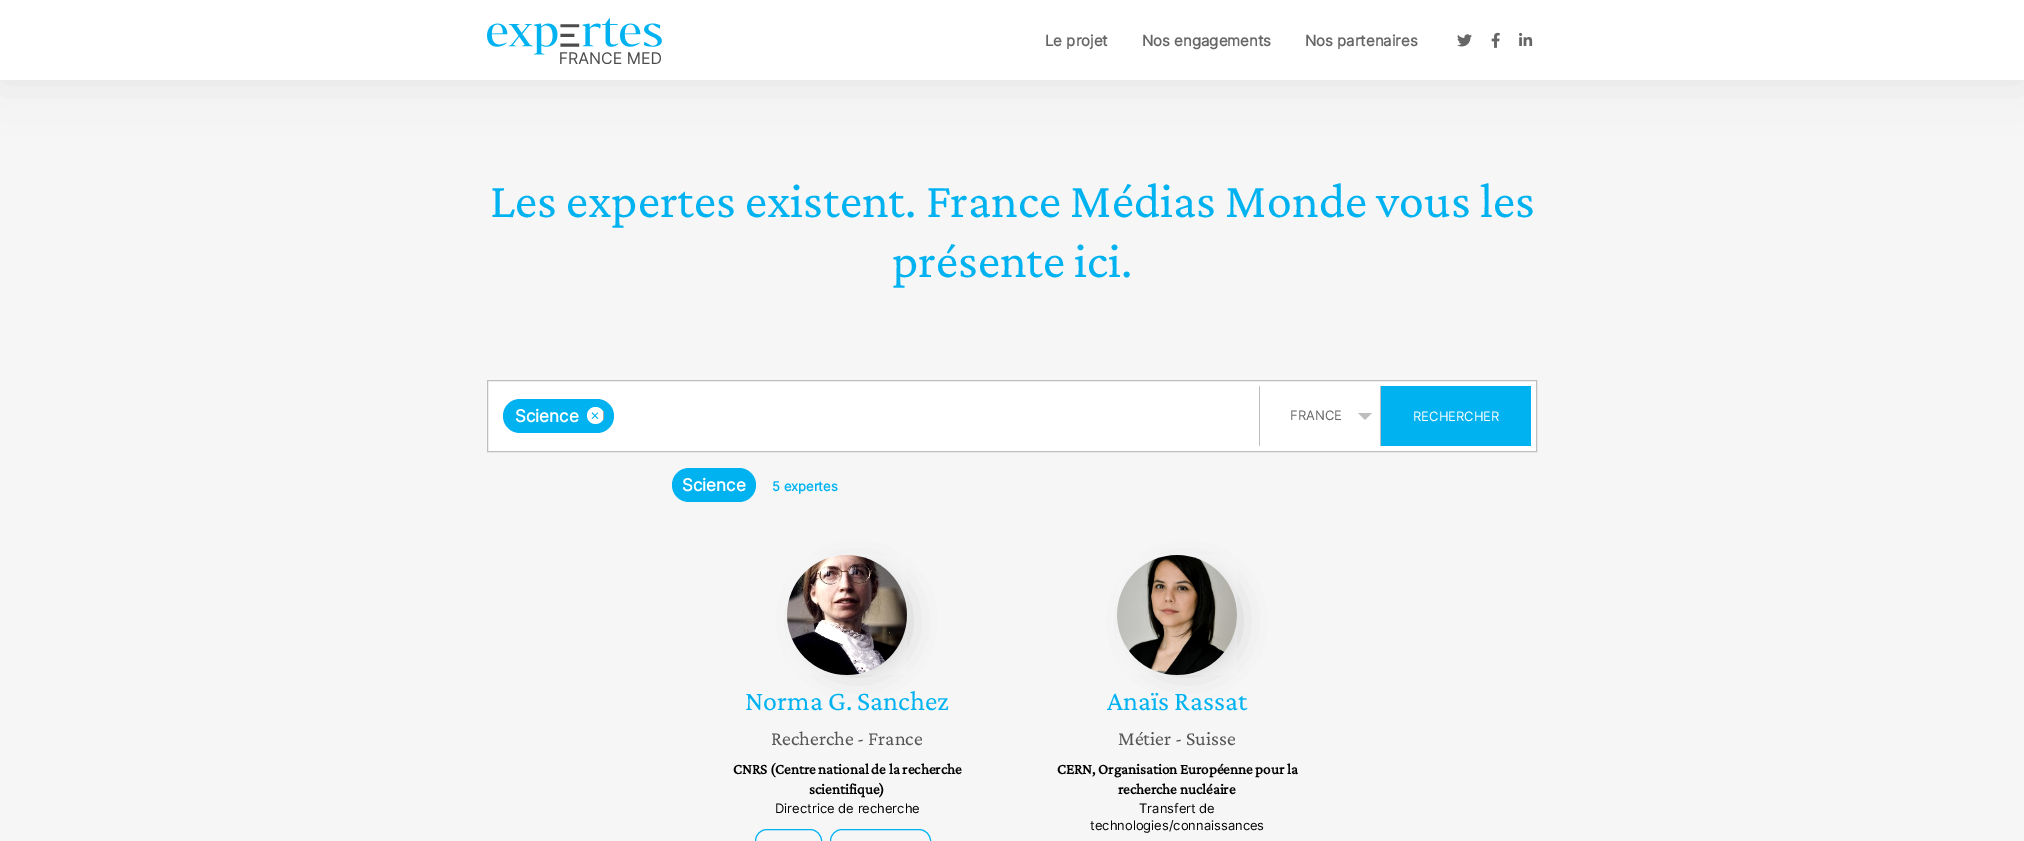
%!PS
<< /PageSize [2024 841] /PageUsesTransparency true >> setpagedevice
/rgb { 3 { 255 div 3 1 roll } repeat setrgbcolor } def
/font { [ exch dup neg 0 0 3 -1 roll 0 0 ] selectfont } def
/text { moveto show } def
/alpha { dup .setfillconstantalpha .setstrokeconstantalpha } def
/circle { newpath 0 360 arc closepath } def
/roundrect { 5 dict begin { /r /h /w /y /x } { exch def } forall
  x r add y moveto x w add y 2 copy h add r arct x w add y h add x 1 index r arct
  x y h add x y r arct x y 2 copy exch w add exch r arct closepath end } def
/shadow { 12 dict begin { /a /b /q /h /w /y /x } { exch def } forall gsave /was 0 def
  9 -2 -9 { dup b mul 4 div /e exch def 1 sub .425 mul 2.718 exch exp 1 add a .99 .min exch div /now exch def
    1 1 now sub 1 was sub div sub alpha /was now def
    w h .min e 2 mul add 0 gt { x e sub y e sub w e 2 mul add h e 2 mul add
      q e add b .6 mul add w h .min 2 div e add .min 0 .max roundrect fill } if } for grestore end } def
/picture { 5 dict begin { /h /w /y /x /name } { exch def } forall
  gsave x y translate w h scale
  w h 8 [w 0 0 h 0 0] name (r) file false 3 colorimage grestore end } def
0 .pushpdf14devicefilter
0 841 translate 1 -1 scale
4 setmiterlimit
246 246 246 rgb
0 0 2024 841 rectfill
0 0 0 rgb
0 0 2024 80 0 25 0.07 shadow
255 255 255 rgb
0 0 2024 80 rectfill
(img_01.rgb) 487 18 175 46 picture
(img_02.rgb) 1457 34 15 13 picture
(img_03.rgb) 1491 32 9 16 picture
(img_04.rgb) 1519 32 14 14 picture
487.5 380.5 moveto 1049 0 rlineto 0 71 rlineto -1049 0 rlineto closepath gsave fill grestore
190 190 190 rgb
stroke
1259 386 1 60 rectfill
0 179 240 rgb
503 399 111 34 17 roundrect fill
255 255 255 rgb
595.5 415.5 8.5 circle fill
170 170 170 rgb
603 411 1 9 rectfill
190 190 190 rgb
1358 413 moveto 14 0 rlineto -7 7 rlineto closepath fill
1380 386 1 60 rectfill
0 179 240 rgb
1381 386 150 60 rectfill
672 468 84 34 17 roundrect fill
0 0 0 rgb
812 576 90 90 45 16 0.25 shadow
(img_05.rgb) 787 555 120 120 picture
0 179 240 rgb
755.5 829.5 66 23 11.5 roundrect stroke
830.5 829.5 100 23 11.5 roundrect stroke
0 0 0 rgb
1142 576 90 90 45 16 0.25 shadow
(img_06.rgb) 1117 555 120 120 picture
/Inter-Bold 15 font
102 102 102 rgb
(Le projet) 1045 46 text
(Nos engagements) 1142 46 text
(Nos partenaires) 1305 46 text
/CrimsonPro-Regular 50 font
0 179 240 rgb
(Les expertes existent. France Médias Monde vous les) 490 217 text
(présente ici.) 892 277 text
/Inter-Bold 17 font
255 255 255 rgb
(Science) 515 422 text
/Inter-Regular 15 font
0 179 240 rgb
(×) 590 420 text
/Inter-Regular 13 font
102 102 102 rgb
(FRANCE) 1290 420 text
255 255 255 rgb
(RECHERCHER) 1413 421 text
/Inter-Bold 17 font
(Science) 682 491 text
/Inter-Bold 13 font
0 179 240 rgb
(5 expertes) 772 491 text
/CrimsonPro-Regular 28 font
(Norma G. Sanchez) 745 710 text
/CrimsonPro-Regular 20 font
85 85 85 rgb
(Recherche - France) 771 745 text
/CrimsonPro-Bold 15 font
0 0 0 rgb
(CNRS \(Centre national de la recherche) 733 774 text
(scientifique\)) 809 794 text
/Inter-Regular 13 font
(Directrice de recherche) 775 813 text
/CrimsonPro-Regular 28 font
0 179 240 rgb
(Anaïs Rassat) 1107 710 text
/CrimsonPro-Regular 20 font
85 85 85 rgb
(Métier - Suisse) 1118 745 text
/CrimsonPro-Bold 15 font
0 0 0 rgb
(CERN, Organisation Européenne pour la) 1057 774 text
(recherche nucléaire) 1118 794 text
/Inter-Regular 13 font
(Transfert de) 1139 813 text
(technologies/connaissances) 1090 830 text
.poppdf14devicefilter showpage
